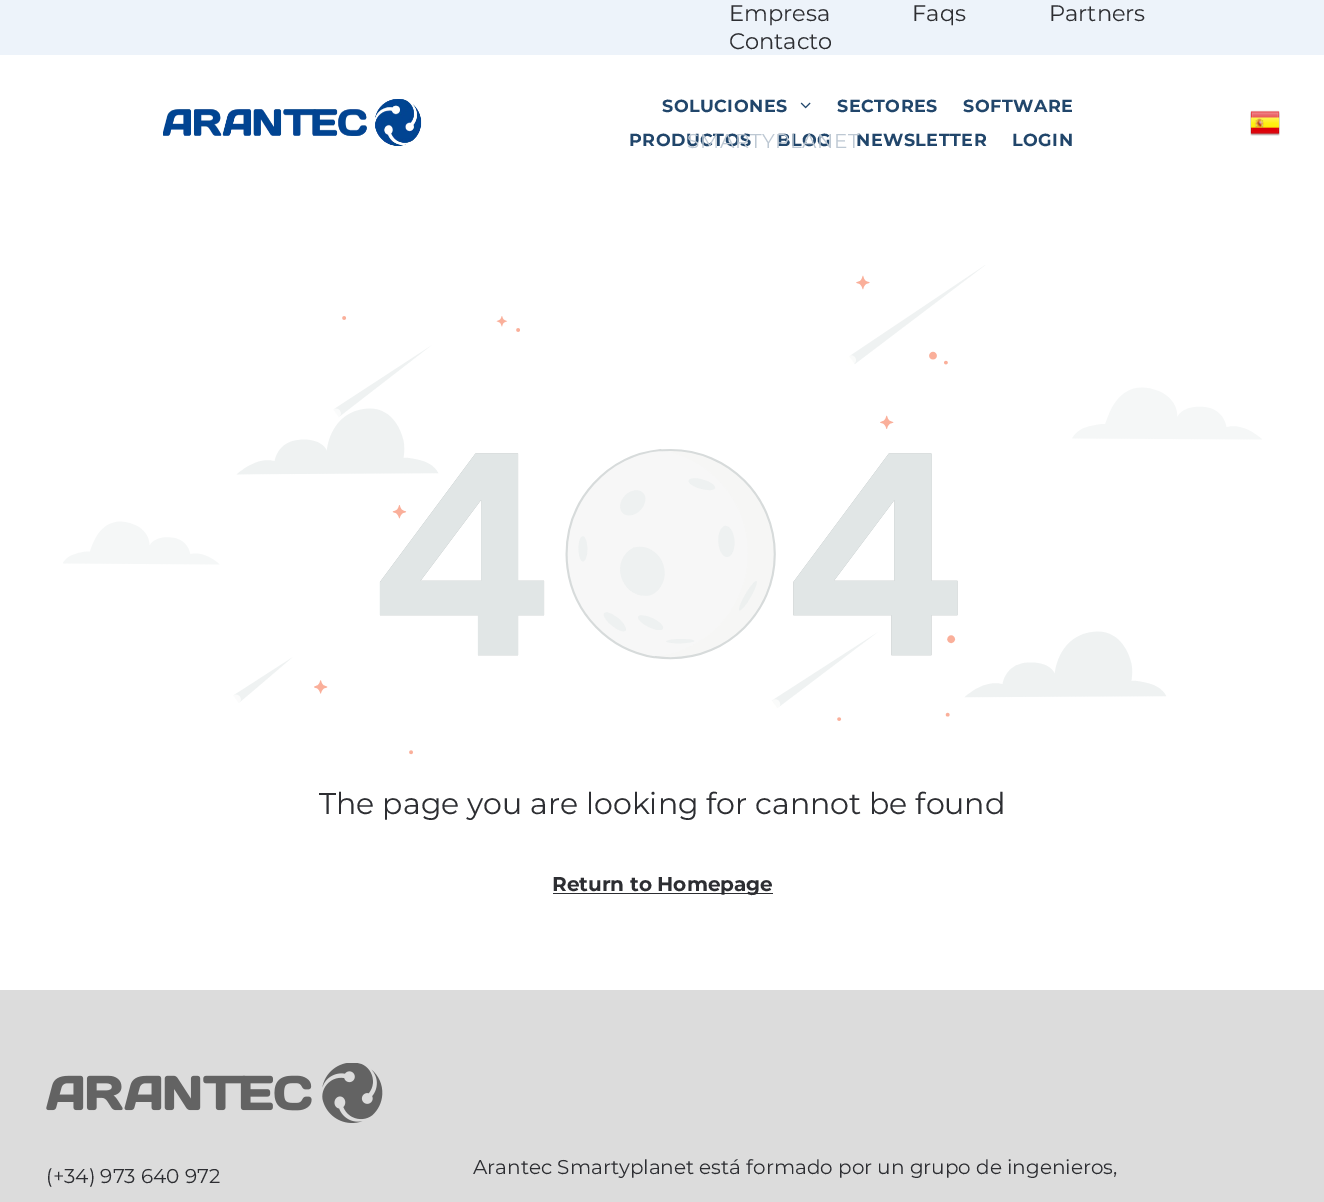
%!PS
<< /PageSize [1324 1202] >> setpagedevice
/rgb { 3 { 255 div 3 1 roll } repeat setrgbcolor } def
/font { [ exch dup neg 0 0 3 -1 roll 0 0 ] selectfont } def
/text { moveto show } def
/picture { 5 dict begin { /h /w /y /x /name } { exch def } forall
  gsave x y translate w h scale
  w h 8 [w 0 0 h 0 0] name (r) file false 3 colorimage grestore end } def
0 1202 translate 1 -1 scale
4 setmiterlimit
255 255 255 rgb
0 0 1324 1202 rectfill
237 243 250 rgb
0 0 1324 55 rectfill
(img_01.rgb) 163 99 259 47 picture
(img_02.rgb) 800 102 11 7 picture
(img_03.rgb) 1250 110 30 26 picture
(img_04.rgb) 63 265 1199 490 picture
45 46 50 rgb
553 893 220 1 rectfill
220 220 220 rgb
0 990 1324 212 rectfill
(img_05.rgb) 46 1063 337 60 picture
/Montserrat-Regular 22.5 font
45 46 50 rgb
(Empresa) 729 21 text
(Faqs) 912 21 text
(Partners) 1049 21 text
(Contacto) 729 49 text
/Montserrat-Bold 17.5 font
33 70 107 rgb
662 112 moveto 0.5 0 (SOLUCIONES) ashow
837 112 moveto 0.5 0 (SECTORES) ashow
963 112 moveto 0.5 0 (SOFTWARE) ashow
629 146 moveto 0.5 0 (PRODUCTOS) ashow
777 146 moveto 0.5 0 (BLOG) ashow
856 146 moveto 0.5 0 (NEWSLETTER) ashow
/Montserrat-Regular 20 font
189 200 211 rgb
687 148 moveto 0.6 0 (SMARTYPLANET) ashow
/Montserrat-Bold 17.5 font
33 70 107 rgb
1012 146 moveto 0.5 0 (LOGIN) ashow
/Montserrat-Regular 30 font
45 46 50 rgb
(The page you are looking for cannot be found) 319 814 text
/Montserrat-Bold 20 font
(Return to Homepage) 552 891 text
/Montserrat-Regular 20 font
(\(+34\) 973 640 972) 46 1183 text
(Arantec Smartyplanet está formado por un grupo de ingenieros,) 473 1174 text
showpage
